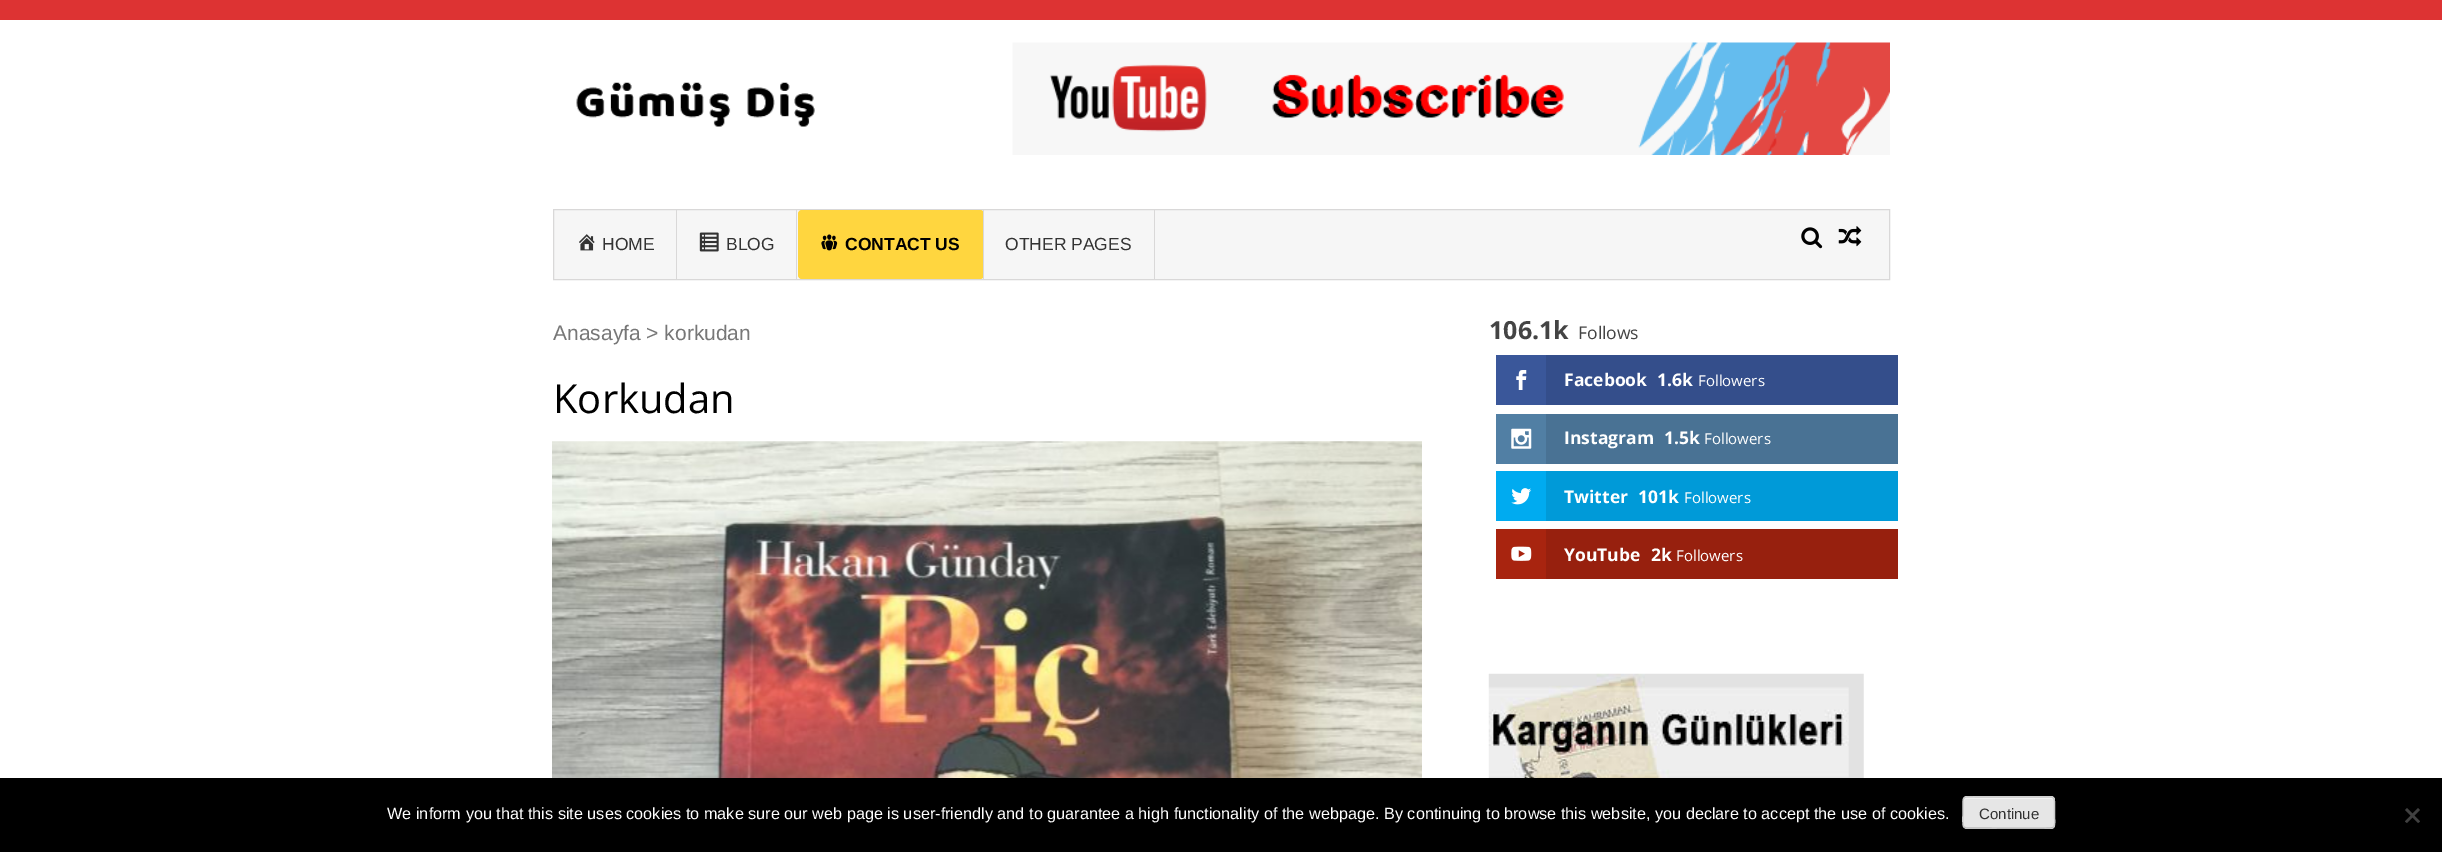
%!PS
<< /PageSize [2442 852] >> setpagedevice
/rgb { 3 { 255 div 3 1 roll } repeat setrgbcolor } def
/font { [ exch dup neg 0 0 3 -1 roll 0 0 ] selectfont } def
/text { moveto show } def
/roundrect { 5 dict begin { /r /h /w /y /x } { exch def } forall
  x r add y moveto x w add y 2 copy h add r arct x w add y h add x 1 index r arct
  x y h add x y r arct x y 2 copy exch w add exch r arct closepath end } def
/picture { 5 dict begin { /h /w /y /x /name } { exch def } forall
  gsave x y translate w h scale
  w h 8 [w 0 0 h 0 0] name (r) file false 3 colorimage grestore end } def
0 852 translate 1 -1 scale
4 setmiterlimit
255 255 255 rgb
0 0 2442 852 rectfill
221 51 51 rgb
0 0 2442 20 rectfill
(img_01.rgb) 576 82 239 45 picture
(img_02.rgb) 1012 42 878 113 picture
246 246 246 rgb
553.5 209.5 moveto 1336 0 rlineto 0 70 rlineto -1336 0 rlineto closepath gsave fill grestore
217 216 216 rgb
stroke
676 210 1 69 rectfill
(img_03.rgb) 579 234 16 17 picture
796 210 1 69 rectfill
(img_04.rgb) 699 232 20 20 picture
255 214 63 rgb
798 210 186 69 4 roundrect fill
217 216 216 rgb
983 210 1 69 rectfill
(img_05.rgb) 821 234 17 17 picture
1154 210 1 69 rectfill
(img_06.rgb) 1801 227 22 22 picture
(img_07.rgb) 1838 226 24 21 picture
(img_08.rgb) 552 441 870 337 picture
58 87 154 rgb
1496 355 50 50 rectfill
(img_09.rgb) 1516 370 11 20 picture
52 78 139 rgb
1546 355 352 50 rectfill
81 127 164 rgb
1496 414 50 50 rectfill
(img_10.rgb) 1511 428 21 21 picture
73 114 148 rgb
1546 414 352 50 rectfill
0 171 240 rgb
1496 471 50 50 rectfill
(img_11.rgb) 1511 488 21 17 picture
0 154 216 rgb
1546 471 352 50 rectfill
168 36 15 rgb
1496 529 50 50 rectfill
(img_12.rgb) 1511 546 21 15 picture
151 32 14 rgb
1546 529 352 50 rectfill
(img_13.rgb) 1488 673 376 105 picture
0 0 0 rgb
0 778 2442 74 rectfill
230 230 230 rgb
1963 796 92 33 4 roundrect fill
243 243 243 rgb
1966 799 moveto 85 0 rlineto 2 0 3 1 3 2 rcurveto 0 -2 -1 -3 -2 -3 rcurveto -86 0 rlineto -1 0 -2 2 -2 3 rcurveto 0 -1 1 -2 2 -2 rcurveto closepath fill
187 187 187 rgb
1.2 setlinewidth
2053.5 827 moveto -0.5 0.5 rlineto -2 1.5 -64.5 0.5 -72.5 0.5 rcurveto -14.5 0 rlineto -2 -1 rlineto stroke
204 204 204 rgb
1964 827 moveto -2 -2 -1 -11.5 -1 -14.5 rcurveto 0 -19 -2.5 -15.5 17.5 -15.5 rcurveto 70.5 0 rlineto 4 0 3.5 5 3.5 7 rcurveto 0 12.5 rlineto 0 2.5 1 8.5 -1 10.5 rcurveto stroke
64 64 64 rgb
2418 808 moveto 2 2 rlineto -13 13 rlineto -2 -1.5 rlineto closepath fill
2405 810 moveto 2 -2 rlineto 13 13.5 rlineto -2 1.5 rlineto closepath fill
/LiberationSans-Regular 17.5 font
51 51 51 rgb
(HOME) 602 250 text
(BLOG) 726 250 text
/LiberationSans-Bold 17.5 font
0 0 0 rgb
(CONTACT US) 845 250 text
/LiberationSans-Regular 17.5 font
51 51 51 rgb
(OTHER PAGES) 1005 250 text
/LiberationSans-Regular 21 font
119 119 119 rgb
(Anasayfa > korkudan) 553 340 text
/OpenSans-Regular 40 font
0 0 0 rgb
(Korkudan) 553 413 text
/OpenSans-Bold 25 font
68 68 68 rgb
(106.1k) 1489 339 text
/OpenSans-Regular 17.5 font
(Follows) 1578 339 text
/OpenSans-Bold 17.5 font
255 255 255 rgb
(Facebook) 1564 386 text
(1.6k) 1657 386 text
/OpenSans-Regular 15 font
(Followers) 1698 386 text
/OpenSans-Bold 17.5 font
(Instagram) 1564 444 text
(1.5k) 1664 444 text
/OpenSans-Regular 15 font
(Followers) 1704 444 text
/OpenSans-Bold 17.5 font
(Twitter) 1564 503 text
(101k) 1638 503 text
/OpenSans-Regular 15 font
(Followers) 1684 503 text
/OpenSans-Bold 17.5 font
(YouTube) 1564 561 text
(2k) 1651 561 text
/OpenSans-Regular 15 font
(Followers) 1676 561 text
/LiberationSans-Regular 16.25 font
(We inform you that this site uses cookies to make sure our web page is user-friendly and to guarantee a high functionality of the webpage. By continuing to browse this website, you declare to accept the use of cookies.) 387 819 text
/LiberationSans-Regular 15 font
51 51 51 rgb
(Continue) 1979 819 text
showpage
